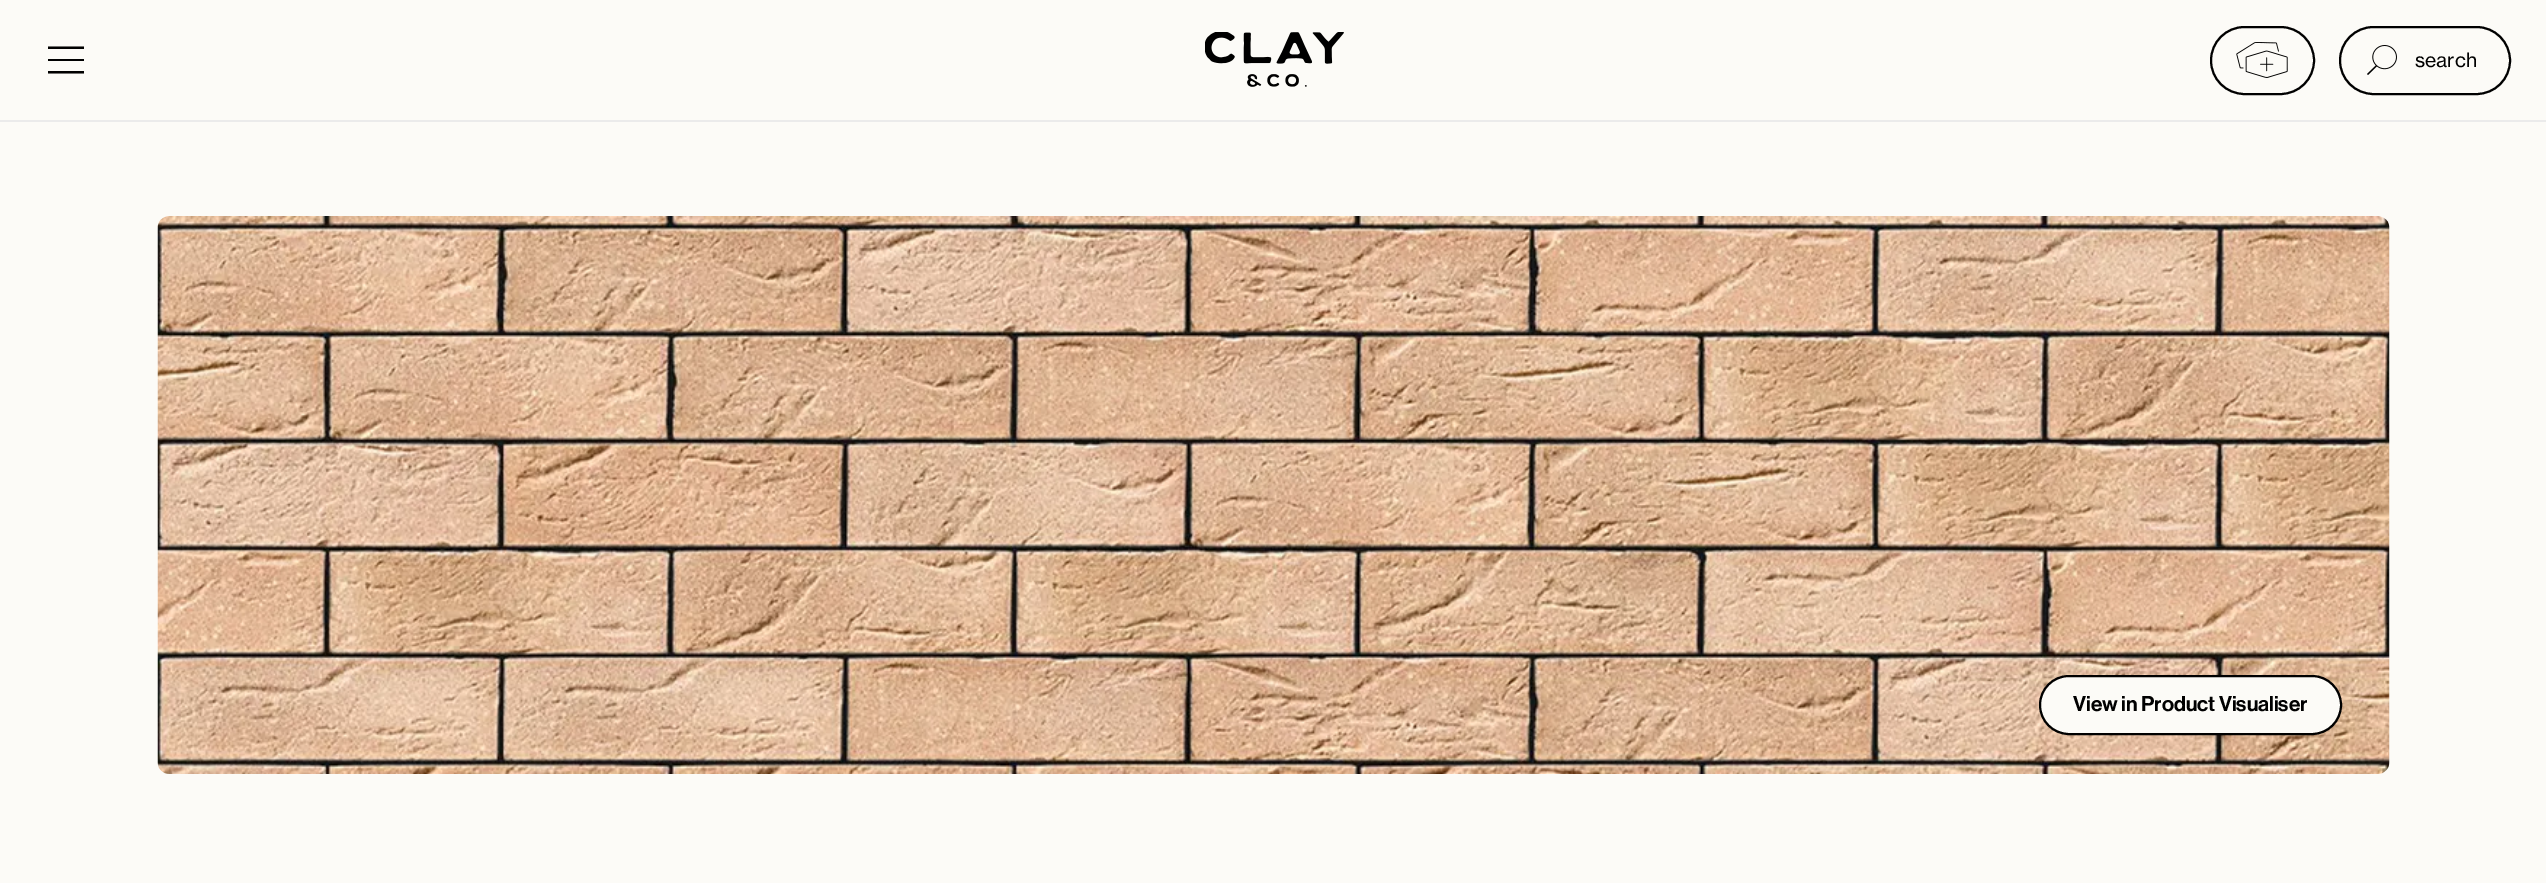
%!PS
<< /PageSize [2546 883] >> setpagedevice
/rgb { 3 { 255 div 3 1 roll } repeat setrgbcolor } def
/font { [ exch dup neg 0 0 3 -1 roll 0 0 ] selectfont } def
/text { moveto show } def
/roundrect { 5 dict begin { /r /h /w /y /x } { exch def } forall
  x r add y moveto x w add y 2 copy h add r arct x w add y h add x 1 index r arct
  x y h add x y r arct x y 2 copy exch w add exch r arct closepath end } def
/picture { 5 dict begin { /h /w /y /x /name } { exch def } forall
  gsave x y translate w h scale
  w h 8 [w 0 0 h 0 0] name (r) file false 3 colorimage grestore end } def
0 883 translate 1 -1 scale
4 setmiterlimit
252 251 247 rgb
0 0 2546 883 rectfill
235 235 235 rgb
0 120 2546 2 rectfill
0 0 0 rgb
48 49 moveto 36 0 rlineto 0 -2.5 rlineto -36 0 rlineto closepath 48 61 moveto 36 0 rlineto 0 -2 rlineto -36 0 rlineto closepath 48 73.5 moveto 36 0 rlineto 0 -2.5 rlineto -36 0 rlineto closepath fill
(img_01.rgb) 1205 32 139 55 picture
2 setlinewidth
2211 27 103 67 33.5 roundrect stroke
(img_02.rgb) 2236 42 52 36 picture
2340 27 170 67 33.5 roundrect stroke
(img_03.rgb) 2367 45 30 30 picture
(img_04.rgb) 157 216 2233 558 picture
252 251 247 rgb
2040 676 301 58 29 roundrect gsave fill grestore
0 0 0 rgb
stroke
/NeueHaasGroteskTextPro-Regular 19.5 font
(search) 2415 67 text
/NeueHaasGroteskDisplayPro-Medium 21 font
(View in Product Visualiser) 2073 711 text
showpage
